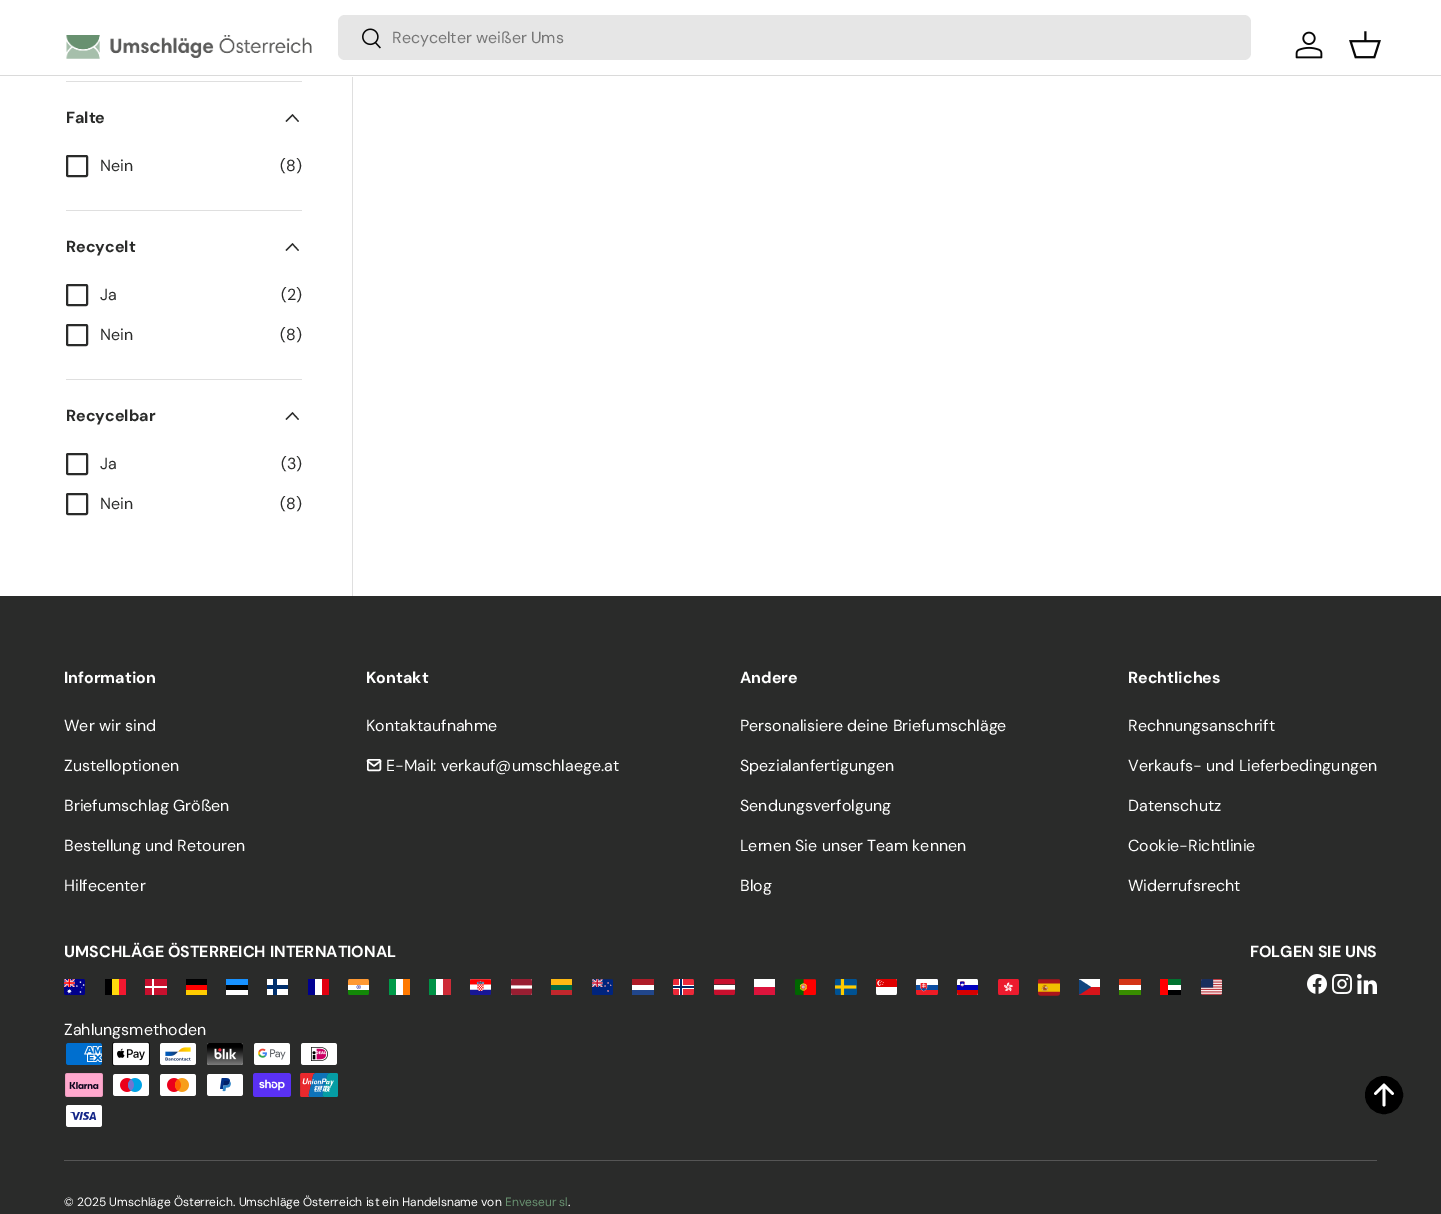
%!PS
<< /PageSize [1441 1214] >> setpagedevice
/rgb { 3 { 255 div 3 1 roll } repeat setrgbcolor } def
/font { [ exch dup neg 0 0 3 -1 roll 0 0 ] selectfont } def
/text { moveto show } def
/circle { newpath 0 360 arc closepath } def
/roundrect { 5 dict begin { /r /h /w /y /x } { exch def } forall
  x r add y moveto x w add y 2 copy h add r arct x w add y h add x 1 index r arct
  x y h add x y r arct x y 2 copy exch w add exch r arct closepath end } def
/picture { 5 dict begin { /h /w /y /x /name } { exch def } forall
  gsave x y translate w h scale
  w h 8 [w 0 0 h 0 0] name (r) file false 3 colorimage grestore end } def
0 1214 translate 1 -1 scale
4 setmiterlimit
255 255 255 rgb
0 0 1441 1214 rectfill
218 218 218 rgb
0 75 1441 1 rectfill
(img_01.rgb) 66 35 246 24 picture
230 230 230 rgb
338 15 913 45 7 roundrect fill
(img_02.rgb) 362 28 19 21 picture
(img_03.rgb) 1295 31 28 28 picture
(img_04.rgb) 1349 31 32 28 picture
223 223 223 rgb
352 77 1 519 rectfill
66 81 236 1 rectfill
66 210 236 1 rectfill
42 43 42 rgb
1.2 setlinewidth
298.5 121.5 moveto -6 -6.5 rlineto -6.5 6.5 rlineto stroke
2 setlinewidth
67 156 20 20 1 roundrect stroke
223 223 223 rgb
66 379 236 1 rectfill
42 43 42 rgb
1.2 setlinewidth
298.5 250.5 moveto -6 -6.5 rlineto -6.5 6.5 rlineto stroke
2 setlinewidth
67 285 20 20 1 roundrect stroke
67 325 20 20 1 roundrect stroke
1.2 setlinewidth
298.5 419.5 moveto -6 -6.5 rlineto -6.5 6.5 rlineto stroke
2 setlinewidth
67 454 20 20 1 roundrect stroke
67 494 20 20 1 roundrect stroke
0 596 1441 618 rectfill
255 255 255 rgb
1.5 setlinewidth
367.75 759.75 12.5 10.5 1.25 roundrect stroke
1 setlinecap
1 setlinejoin
367.5 761 moveto 6.5 5 rlineto 6.5 -5 rlineto stroke
(img_05.rgb) 64 979 21 16 picture
gsave
105 978 21 18 3 roundrect clip newpath
0 0 1 rgb
105 979 7 16 rectfill
grestore
255 217 12 rgb
112 979 7 16 rectfill
gsave
105 978 21 18 3 roundrect clip newpath
243 24 48 rgb
119 979 7 16 rectfill
grestore
gsave
145 978 22 18 3 roundrect clip newpath
200 16 46 rgb
145 979 22 16 rectfill
grestore
255 255 255 rgb
152 979 2 16 rectfill
145 986 22 2 rectfill
gsave
186 978 21 18 3 roundrect clip newpath
255 204 0 rgb
186 990 21 5 rectfill
0 0 1 rgb
186 979 21 6 rectfill
grestore
255 0 0 rgb
186 985 21 5 rectfill
gsave
226 978 22 18 3 roundrect clip newpath
23 145 255 rgb
226 979 22 6 rectfill
grestore
0 0 1 rgb
226 985 22 5 rectfill
gsave
226 978 22 18 3 roundrect clip newpath
255 255 255 rgb
226 990 22 5 rectfill
grestore
gsave
267 978 21 18 3 roundrect clip newpath
255 255 255 rgb
267 979 21 16 rectfill
grestore
0 47 108 rgb
267 985 21 4 rectfill
273 979 4 16 rectfill
gsave
308 978 21 18 3 roundrect clip newpath
255 255 255 rgb
308 979 21 16 rectfill
0 0 145 rgb
308 979 7 16 rectfill
225 0 15 rgb
322 979 7 16 rectfill
grestore
(img_06.rgb) 348 979 21 16 picture
gsave
389 978 21 18 3 roundrect clip newpath
255 255 255 rgb
389 979 21 16 rectfill
0 154 73 rgb
389 979 7 16 rectfill
255 121 0 rgb
403 979 7 16 rectfill
grestore
gsave
429 978 22 18 3 roundrect clip newpath
255 255 255 rgb
429 979 22 16 rectfill
0 146 70 rgb
429 979 7 16 rectfill
206 43 55 rgb
443 979 8 16 rectfill
grestore
(img_07.rgb) 470 979 21 16 picture
(img_08.rgb) 511 979 21 16 picture
gsave
551 978 21 18 3 roundrect clip newpath
0 106 68 rgb
551 979 21 16 rectfill
193 39 45 rgb
551 990 21 5 rectfill
253 185 19 rgb
551 979 21 6 rectfill
grestore
(img_09.rgb) 592 979 21 16 picture
gsave
632 978 22 18 3 roundrect clip newpath
174 28 40 rgb
632 979 22 6 rectfill
grestore
255 255 255 rgb
632 985 22 5 rectfill
gsave
632 978 22 18 3 roundrect clip newpath
33 70 139 rgb
632 990 22 5 rectfill
grestore
(img_10.rgb) 673 979 21 16 picture
(img_11.rgb) 714 979 21 16 picture
gsave
754 978 21 18 3 roundrect clip newpath
754 979 21 16 rectfill
220 20 60 rgb
754 987 21 8 rectfill
grestore
(img_12.rgb) 795 979 21 16 picture
(img_13.rgb) 835 979 22 16 picture
(img_14.rgb) 876 979 21 16 picture
(img_15.rgb) 916 979 22 16 picture
(img_16.rgb) 957 979 21 16 picture
(img_17.rgb) 998 979 21 16 picture
(img_18.rgb) 1038 979 22 17 picture
gsave
1079 978 21 18 3 roundrect clip newpath
1079 979 21 8 rectfill
215 20 26 rgb
1079 987 21 8 rectfill
grestore
gsave
1079 979 21 16 rectclip
17 69 126 rgb
1091 987 moveto -11.5 -7.5 rlineto -1 1 -1 14 0 15 rcurveto closepath fill
grestore
gsave
1119 978 22 18 3 roundrect clip newpath
1119 979 22 16 rectfill
56 141 0 rgb
1119 990 22 5 rectfill
212 53 22 rgb
1119 979 22 6 rectfill
grestore
gsave
1160 978 21 18 3 roundrect clip newpath
0 115 47 rgb
1160 979 21 6 rectfill
grestore
1160 985 21 5 rectfill
gsave
1160 978 21 18 3 roundrect clip newpath
0 0 1 rgb
1160 990 21 5 rectfill
255 0 0 rgb
1160 979 8 16 rectfill
grestore
(img_19.rgb) 1201 979 21 16 picture
(img_20.rgb) 1307 974 20 20 picture
(img_21.rgb) 1332 974 20 20 picture
(img_22.rgb) 1357 974 20 20 picture
(img_23.rgb) 66 1043 36 22 picture
(img_24.rgb) 112 1042 38 24 picture
(img_25.rgb) 160 1043 36 22 picture
(img_26.rgb) 207 1043 36 22 picture
(img_27.rgb) 254 1043 36 22 picture
(img_28.rgb) 301 1043 36 22 picture
(img_29.rgb) 65 1073 38 24 picture
(img_30.rgb) 113 1074 36 22 picture
(img_31.rgb) 160 1074 36 22 picture
(img_32.rgb) 207 1074 36 22 picture
(img_33.rgb) 253 1073 38 24 picture
(img_34.rgb) 300 1073 38 24 picture
(img_35.rgb) 66 1105 36 22 picture
85 85 85 rgb
64 1160 1313 1 rectfill
0 0 0 rgb
1384 1095 18 circle gsave fill grestore
2 setlinewidth
0 setlinecap
0 setlinejoin
stroke
255 255 255 rgb
2.8 setlinewidth
1 setlinecap
1 setlinejoin
1384 1085 moveto 0 20 rlineto 1384 1085 moveto -8.5 8.5 rlineto 1384 1085 moveto 8.5 8.5 rlineto stroke
/DMSans-Regular 16 font
119 119 119 rgb
(Recycelter weißer Ums) 392 43 text
/DMSans-Bold 16 font
42 43 42 rgb
(Falte) 66 123 text
/DMSans-Regular 16 font
(Nein) 100 171 text
(\(8\)) 280 171 text
/DMSans-Bold 16 font
(Recycelt) 66 252 text
/DMSans-Regular 16 font
(Ja) 100 300 text
(\(2\)) 281 300 text
(Nein) 100 340 text
(\(8\)) 280 340 text
/DMSans-Bold 16 font
(Recycelbar) 66 421 text
/DMSans-Regular 16 font
(Ja) 100 469 text
(\(3\)) 281 469 text
(Nein) 100 509 text
(\(8\)) 280 509 text
/DMSans-Bold 16 font
255 255 255 rgb
(Information) 64 683 text
/DMSans-Regular 16 font
(Wer wir sind) 64 731 text
(Zustelloptionen) 64 771 text
(Briefumschlag Größen) 64 811 text
(Bestellung und Retouren) 64 851 text
(Hilfecenter) 64 891 text
/DMSans-Bold 16 font
(Kontakt) 366 683 text
/DMSans-Regular 16 font
(Kontaktaufnahme) 366 731 text
(E-Mail: verkauf@umschlaege.at) 386 771 text
/DMSans-Bold 16 font
(Andere) 740 683 text
/DMSans-Regular 16 font
(Personalisiere deine Briefumschläge) 740 731 text
(Spezialanfertigungen) 740 771 text
(Sendungsverfolgung) 740 811 text
(Lernen Sie unser Team kennen) 740 851 text
(Blog) 740 891 text
/DMSans-Bold 16 font
(Rechtliches) 1128 683 text
/DMSans-Regular 16 font
(Rechnungsanschrift) 1128 731 text
(Verkaufs- und Lieferbedingungen) 1128 771 text
(Datenschutz) 1128 811 text
(Cookie-Richtlinie) 1128 851 text
(Widerrufsrecht) 1128 891 text
/DMSans-Bold 16 font
(UMSCHLÄGE ÖSTERREICH INTERNATIONAL) 64 957 text
(FOLGEN SIE UNS) 1250 957 text
/DMSans-Regular 16 font
(Zahlungsmethoden) 64 1035 text
/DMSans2-Regular 12 font
(© 2025 Umschläge Österreich. Umschläge Österreich ist ein Handelsname von) 64 1206 text
104 145 112 rgb
(Enveseur sl) 505 1206 text
255 255 255 rgb
(.) 568 1206 text
showpage
